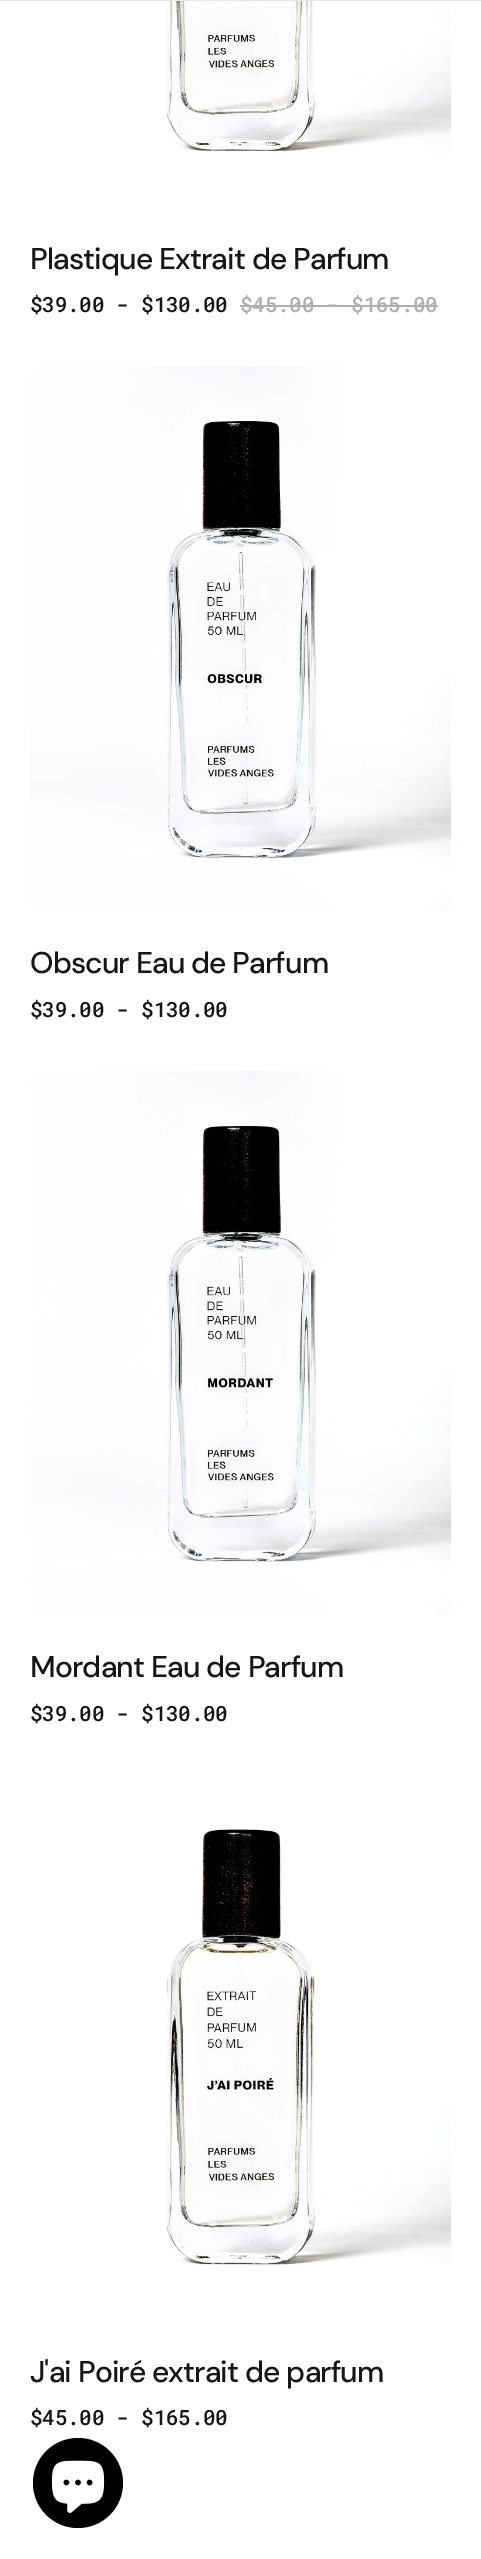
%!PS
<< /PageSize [481 2559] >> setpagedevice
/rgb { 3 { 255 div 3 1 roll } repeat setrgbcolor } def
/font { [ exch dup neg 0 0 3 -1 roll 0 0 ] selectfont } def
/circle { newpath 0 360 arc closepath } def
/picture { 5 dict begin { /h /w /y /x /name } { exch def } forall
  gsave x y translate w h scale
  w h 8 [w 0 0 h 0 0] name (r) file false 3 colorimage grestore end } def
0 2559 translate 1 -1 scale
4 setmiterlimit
255 255 255 rgb
0 0 481 2559 rectfill
230 230 230 rgb
0 0 481 1 rectfill
(img_01.rgb) 166 1 285 152 picture
175 175 175 rgb
240 305 198 2 rectfill
(img_02.rgb) 30 366 421 545 picture
(img_03.rgb) 31 1071 420 544 picture
(img_04.rgb) 166 1829 285 437 picture
0 0 0 rgb
78 2483 45 circle fill
(img_05.rgb) 51 2460 54 53 picture
/DMSans-Medium 30 font
22 22 22 rgb
30 269 moveto -0.9 0 (Plastique Extrait de Parfum) ashow
/RobotoMono-Medium 21 font
30 312 moveto -0.25 0 ($39.00 - $130.00) ashow
175 175 175 rgb
240 312 moveto -0.25 0 ($45.00 - $165.00) ashow
/DMSans-Medium 30 font
22 22 22 rgb
30 973 moveto -0.9 0 (Obscur Eau de Parfum) ashow
/RobotoMono-Medium 21 font
30 1017 moveto -0.25 0 ($39.00 - $130.00) ashow
/DMSans-Medium 30 font
30 1677 moveto -0.9 0 (Mordant Eau de Parfum) ashow
/RobotoMono-Medium 21 font
30 1721 moveto -0.25 0 ($39.00 - $130.00) ashow
/DMSans-Medium 30 font
30 2382 moveto -0.9 0 (J'ai Poiré extrait de parfum) ashow
/RobotoMono-Medium 21 font
30 2425 moveto -0.25 0 ($45.00 - $165.00) ashow
showpage
